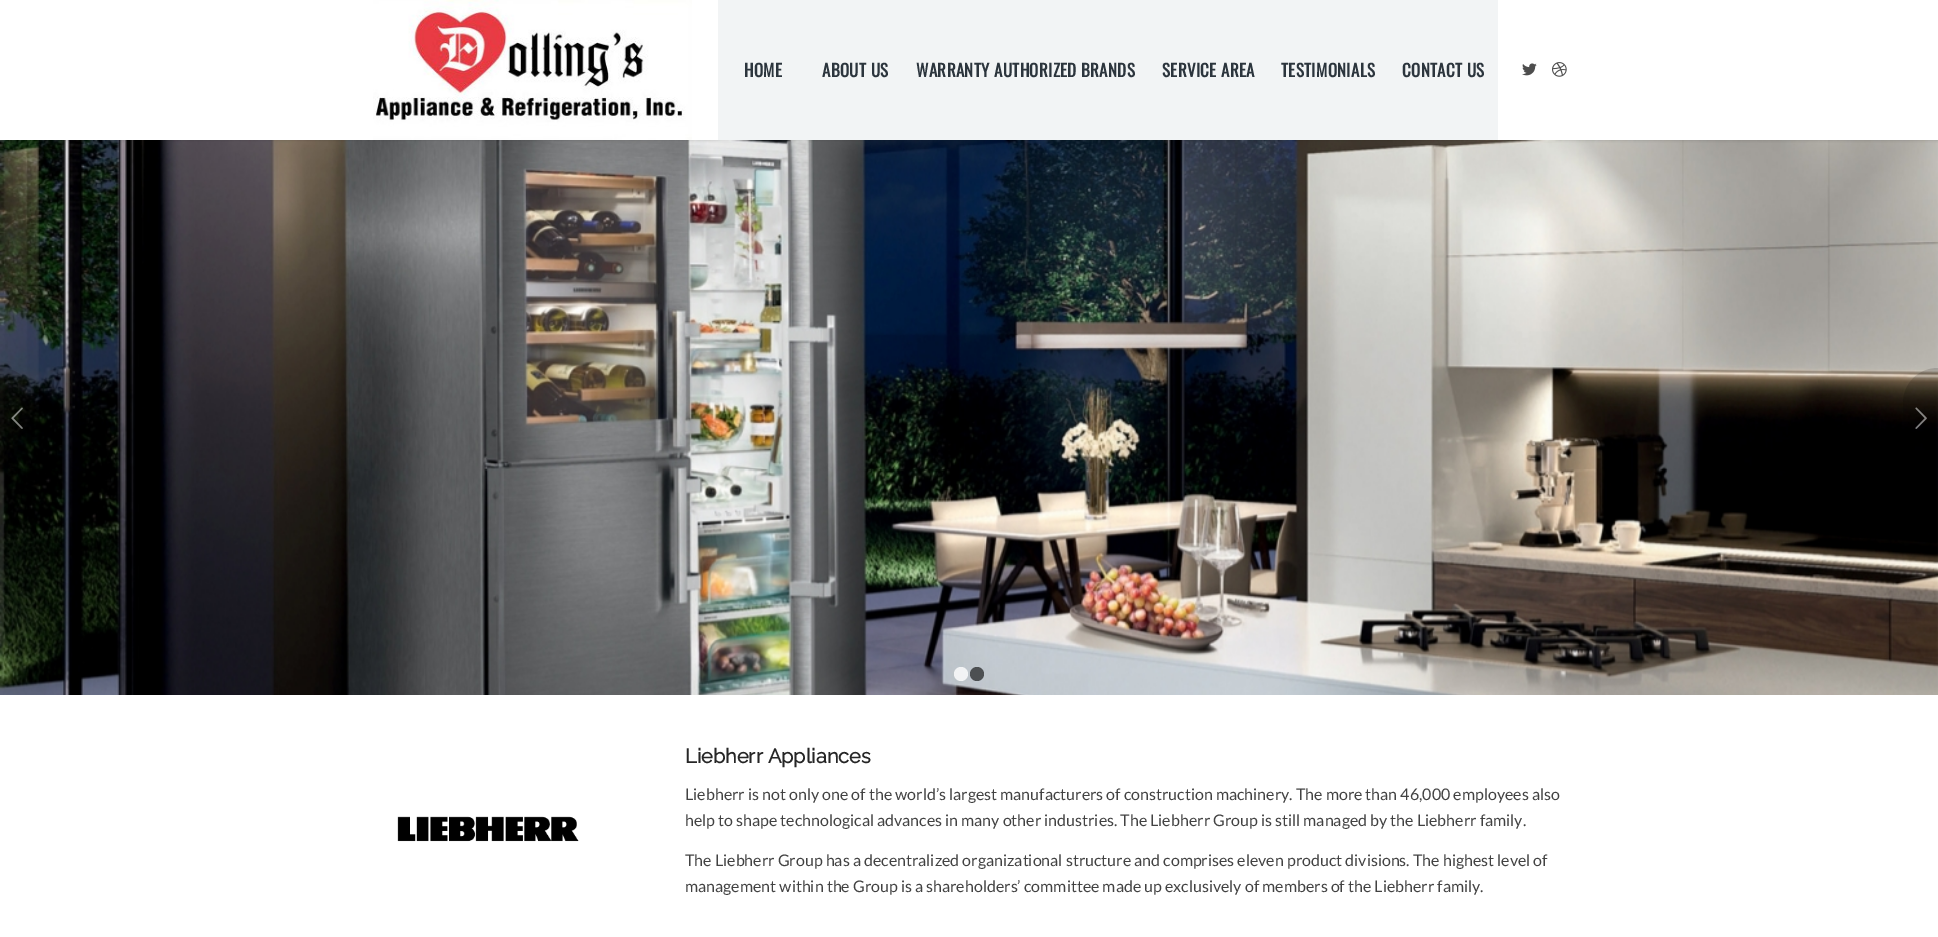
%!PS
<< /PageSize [1938 937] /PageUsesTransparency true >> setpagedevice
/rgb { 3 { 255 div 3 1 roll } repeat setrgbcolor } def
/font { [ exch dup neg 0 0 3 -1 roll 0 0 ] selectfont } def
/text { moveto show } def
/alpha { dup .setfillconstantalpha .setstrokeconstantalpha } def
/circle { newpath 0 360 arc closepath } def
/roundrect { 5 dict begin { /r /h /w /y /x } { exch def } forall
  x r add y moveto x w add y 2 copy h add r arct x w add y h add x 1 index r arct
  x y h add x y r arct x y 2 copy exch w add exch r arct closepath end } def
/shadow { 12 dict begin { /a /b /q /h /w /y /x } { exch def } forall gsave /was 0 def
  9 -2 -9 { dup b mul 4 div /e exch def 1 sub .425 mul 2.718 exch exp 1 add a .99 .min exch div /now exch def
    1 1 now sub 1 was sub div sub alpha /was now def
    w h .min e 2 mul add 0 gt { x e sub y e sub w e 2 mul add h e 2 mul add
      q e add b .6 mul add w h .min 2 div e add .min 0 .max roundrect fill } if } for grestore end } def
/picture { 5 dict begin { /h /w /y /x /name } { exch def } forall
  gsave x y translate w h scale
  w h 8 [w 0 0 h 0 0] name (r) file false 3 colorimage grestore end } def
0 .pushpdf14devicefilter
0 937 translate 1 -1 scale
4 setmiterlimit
255 255 255 rgb
0 0 1938 937 rectfill
(img_04.rgb) 0 140 1938 555 picture
0 0 0 rgb
-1 -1 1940 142 0 1 0.1 shadow
255 255 255 rgb
0 0 1938 140 rectfill
(img_01.rgb) 373 0 319 140 picture
242 244 245 rgb
718 0 780 140 rectfill
(img_02.rgb) 1522 63 15 13 picture
(img_03.rgb) 1552 62 15 15 picture
0.15 alpha
0 0 0 rgb
0 368 moveto 19.5 0 35 15.5 35 35 rcurveto 0 30 rlineto 0 19.5 -15.5 35 -35 35 rcurveto closepath fill
1 alpha
(img_05.rgb) 11 407 12 22 picture
0.15 alpha
1938 368 moveto 0 100 rlineto -19.5 0 -35 -15.5 -35 -35 rcurveto 0 -30 rlineto 0 -19.5 15.5 -35 35 -35 rcurveto closepath fill
1 alpha
(img_06.rgb) 1915 407 12 22 picture
0.8 alpha
255 255 255 rgb
961 674 7 circle fill
0.6 alpha
0 0 0 rgb
977 674 7 circle fill
1 alpha
(img_07.rgb) 397 816 182 26 picture
/Oswald-Bold 17 font
44 53 61 rgb
744 77 moveto 0.35 0 (HOME) ashow
822 77 moveto 0.35 0 (ABOUT US) ashow
916 77 moveto 0.35 0 (WARRANTY AUTHORIZED BRANDS) ashow
1162 77 moveto 0.35 0 (SERVICE AREA) ashow
1281 77 moveto 0.35 0 (TESTIMONIALS) ashow
1402 77 moveto 0.35 0 (CONTACT US) ashow
/Raleway-Bold 20 font
38 38 38 rgb
(Liebherr Appliances) 685 763 text
/Lato-Regular 16 font
66 66 66 rgb
(Liebherr is not only one of the world’s largest manufacturers of construction machinery. The more than 46,000 employees also) 685 800 text
(help to shape technological advances in many other industries. The Liebherr Group is still managed by the Liebherr family.) 685 826 text
(The Liebherr Group has a decentralized organizational structure and comprises eleven product divisions. The highest level of) 685 866 text
(management within the Group is a shareholders’ committee made up exclusively of members of the Liebherr family.) 685 892 text
.poppdf14devicefilter showpage
